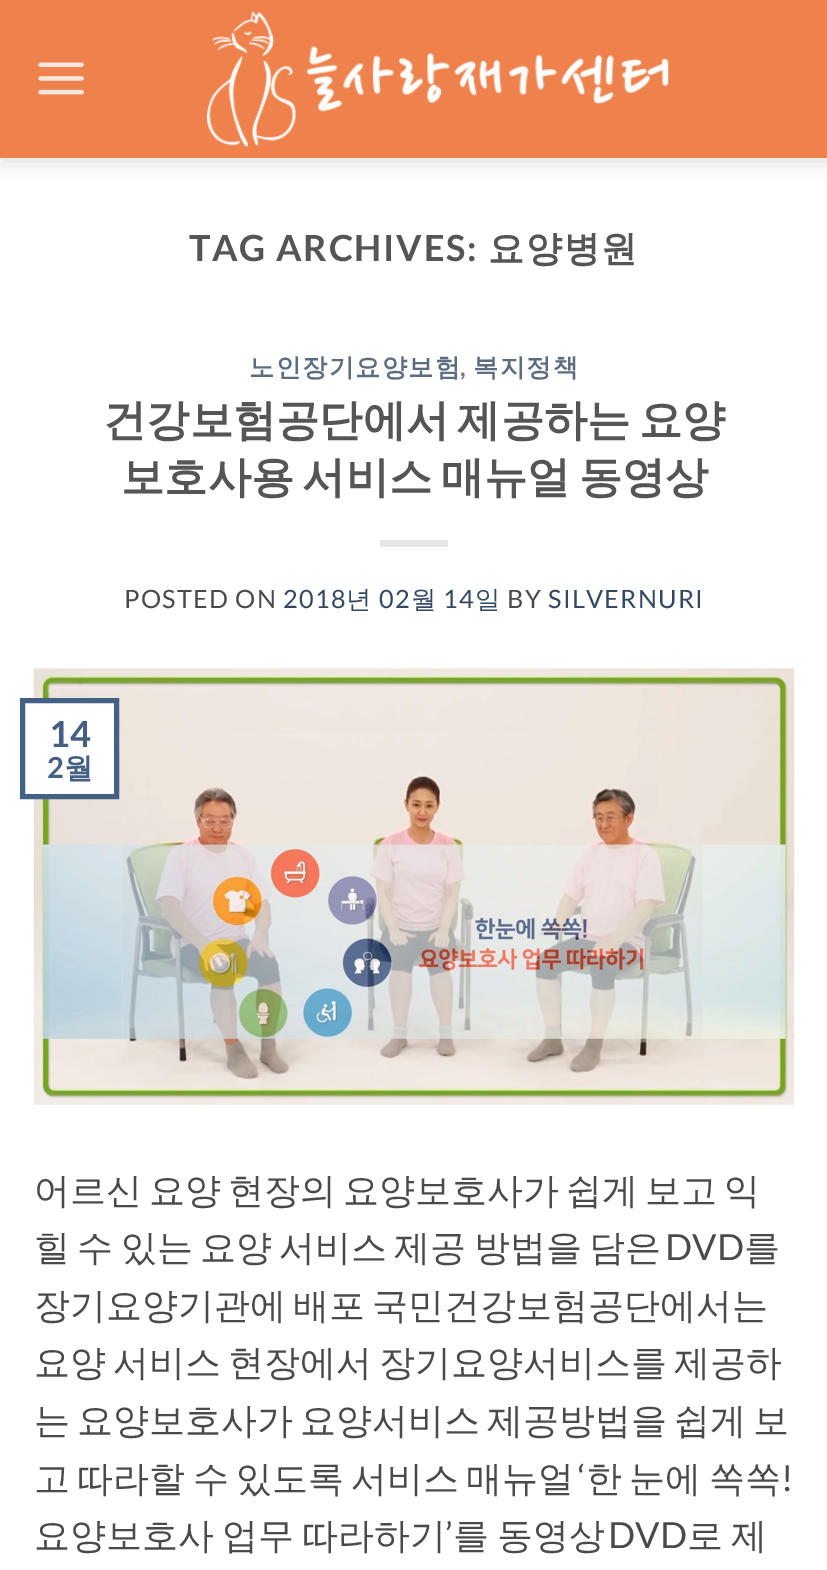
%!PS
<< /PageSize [827 1570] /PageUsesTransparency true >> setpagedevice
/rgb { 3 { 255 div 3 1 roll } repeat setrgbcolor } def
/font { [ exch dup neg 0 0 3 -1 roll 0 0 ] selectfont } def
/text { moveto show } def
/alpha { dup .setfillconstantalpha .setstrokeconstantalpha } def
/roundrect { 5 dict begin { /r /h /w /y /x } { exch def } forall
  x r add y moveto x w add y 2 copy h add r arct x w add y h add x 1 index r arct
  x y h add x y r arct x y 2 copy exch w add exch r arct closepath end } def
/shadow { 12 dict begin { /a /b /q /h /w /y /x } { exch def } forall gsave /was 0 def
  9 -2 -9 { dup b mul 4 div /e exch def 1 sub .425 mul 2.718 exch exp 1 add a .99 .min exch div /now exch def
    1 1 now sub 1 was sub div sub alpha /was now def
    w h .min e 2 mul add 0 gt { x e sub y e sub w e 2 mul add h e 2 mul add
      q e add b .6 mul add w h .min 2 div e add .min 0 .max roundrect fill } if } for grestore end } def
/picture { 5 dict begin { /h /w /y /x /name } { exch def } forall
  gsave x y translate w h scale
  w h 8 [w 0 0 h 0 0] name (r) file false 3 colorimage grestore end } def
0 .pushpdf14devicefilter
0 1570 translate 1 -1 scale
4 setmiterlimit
255 255 255 rgb
0 0 827 1570 rectfill
gsave
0 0 moveto 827 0 rlineto 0 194 rlineto -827 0 rlineto closepath 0 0 moveto 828 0 rlineto 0 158 rlineto -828 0 rlineto closepath eoclip newpath
0 0 0 rgb
2 2 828 158 0 11 0.15 shadow
grestore
0.7 alpha
232 77 0 rgb
0 0 827 158 rectfill
1 alpha
(img_01.rgb) 38 62 46 33 picture
(img_02.rgb) 207 11 462 136 picture
230 230 230 rgb
380 540 68 7 rectfill
(img_03.rgb) 33 668 762 437 picture
255 255 255 rgb
33 703 81 91 rectfill
68 96 132 rgb
5 setlinewidth
22.5 700.5 94 96 rectstroke
/Lato-Bold 36 font
85 85 85 rgb
189 261 moveto 1.75 0 (TAG ARCHIVES:) ashow
/WenQuanYiZenHei-Bold 36 font
488 261 moveto 1.75 0 (요양병원) ashow
/WenQuanYiZenHei-Bold 25.25 font
92 109 129 rgb
249 376 moveto 1.25 0 (노인장기요양보험) ashow
/Lato-Bold 25.25 font
119 119 119 rgb
460 376 moveto 1.25 0 (,) ashow
/WenQuanYiZenHei-Bold 25.25 font
92 109 129 rgb
473 376 moveto 1.25 0 (복지정책) ashow
/WenQuanYiZenHei-Bold 43.25 font
85 85 85 rgb
103 435 moveto -4.5 0 32 (건강보험공단에서 제공하는 요양) widthshow
121 492 moveto -4.5 0 32 (보호사용 서비스 매뉴얼 동영상) widthshow
/Lato-Regular 25.25 font
74 74 74 rgb
124 608 moveto 1.25 0 (POSTED ON) ashow
51 72 98 rgb
283 608 moveto 1.25 0 (2018) ashow
/WenQuanYiZenHei-Medium 25.25 font
346 608 moveto 1.25 0 (년) ashow
/Lato-Regular 25.25 font
379 608 moveto 1.25 0 (02) ashow
/WenQuanYiZenHei-Medium 25.25 font
411 608 moveto 1.25 0 (월) ashow
/Lato-Regular 25.25 font
443 608 moveto 1.25 0 (14) ashow
/WenQuanYiZenHei-Medium 25.25 font
475 608 moveto 1.25 0 (일) ashow
/Lato-Regular 25.25 font
74 74 74 rgb
507 608 moveto 1.25 0 (BY) ashow
51 72 98 rgb
548 608 moveto 1.25 0 (SILVERNURI) ashow
/Lato-Bold 36 font
68 96 132 rgb
(14) 49 747 text
/Lato-Bold 29 font
(2) 47 778 text
/WenQuanYiZenHei-Bold 29 font
(월) 64 778 text
/WenQuanYiZenHei-Medium 36 font
74 74 74 rgb
34 1203 moveto -3.75 0 32 (어르신 요양 현장의 요양보호사가 쉽게 보고 익) widthshow
34 1260 moveto -3.5 0 32 (힐 수 있는 요양 서비스 제공 방법을 담은) widthshow
/Lato-Regular 36 font
(DVD) 665 1260 text
/WenQuanYiZenHei-Medium 36 font
(를) 744 1260 text
34 1318 moveto -3.75 0 32 (장기요양기관에 배포 국민건강보험공단에서는) widthshow
34 1375 moveto -3.75 0 32 (요양 서비스 현장에서 장기요양서비스를 제공하) widthshow
34 1433 moveto -3.75 0 32 (는 요양보호사가 요양서비스 제공방법을 쉽게 보) widthshow
34 1491 moveto -3.5 0 32 (고 따라할 수 있도록 서비스 매뉴얼) widthshow
/Lato-Regular 36 font
(‘) 578 1491 text
/WenQuanYiZenHei-Medium 36 font
586 1491 moveto -3.5 0 32 (한 눈에 쏙쏙) widthshow
/Lato-Regular 36 font
(!) 781 1491 text
/WenQuanYiZenHei-Medium 36 font
34 1548 moveto -3 0 32 (요양보호사 업무 따라하기) widthshow
/Lato-Regular 36 font
(’) 445 1548 text
/WenQuanYiZenHei-Medium 36 font
453 1548 moveto -3 0 32 (를 동영상) widthshow
/Lato-Regular 36 font
(DVD) 608 1548 text
/WenQuanYiZenHei-Medium 36 font
687 1548 moveto -3 0 32 (로 제) widthshow
.poppdf14devicefilter showpage
